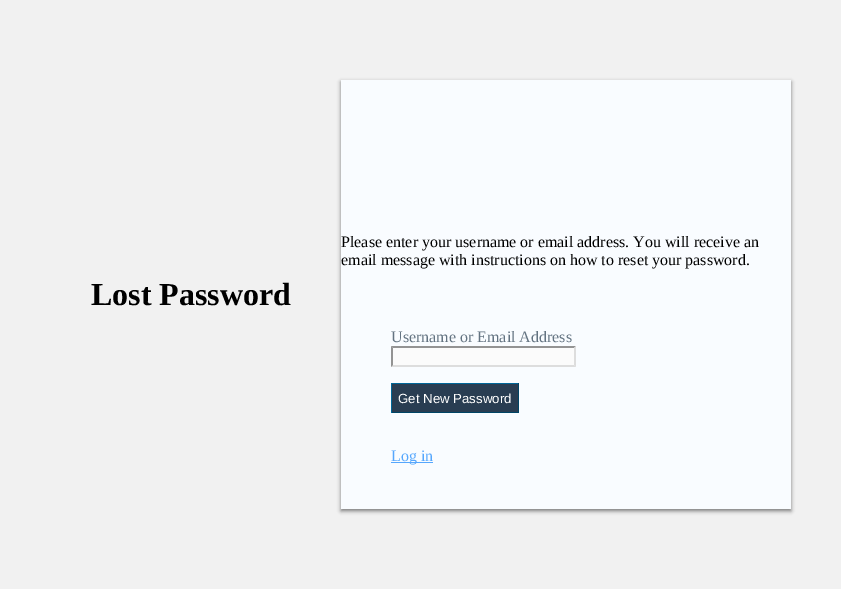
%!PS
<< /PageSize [841 589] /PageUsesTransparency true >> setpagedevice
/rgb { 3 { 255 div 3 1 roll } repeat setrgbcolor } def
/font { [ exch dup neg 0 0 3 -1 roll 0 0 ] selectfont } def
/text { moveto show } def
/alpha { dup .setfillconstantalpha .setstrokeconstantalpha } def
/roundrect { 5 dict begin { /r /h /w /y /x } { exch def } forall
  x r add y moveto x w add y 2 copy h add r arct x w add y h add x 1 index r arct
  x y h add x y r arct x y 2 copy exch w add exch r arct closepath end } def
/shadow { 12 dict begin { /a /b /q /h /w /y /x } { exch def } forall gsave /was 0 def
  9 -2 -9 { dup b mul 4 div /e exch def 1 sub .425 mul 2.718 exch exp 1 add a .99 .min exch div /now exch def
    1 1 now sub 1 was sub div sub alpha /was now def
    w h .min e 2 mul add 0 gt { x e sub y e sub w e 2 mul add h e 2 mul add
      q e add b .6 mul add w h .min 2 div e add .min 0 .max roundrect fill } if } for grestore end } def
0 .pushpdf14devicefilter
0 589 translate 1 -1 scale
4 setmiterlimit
241 241 241 rgb
0 0 841 589 rectfill
0 0 0 rgb
341 82 450 429 0 2 0.5 shadow
249 252 255 rgb
341 80 450 429 rectfill
251 251 251 rgb
391 346 185 21 rectfill
147 147 147 rgb
391 346 moveto 185 0 rlineto -2 2 rlineto -181 0 rlineto closepath fill
221 221 221 rgb
576 346 moveto 0 21 rlineto -2 -2 rlineto 0 -17 rlineto closepath fill
576 367 moveto -185 0 rlineto 2 -2 rlineto 181 0 rlineto closepath fill
147 147 147 rgb
391 367 moveto 0 -21 rlineto 2 2 rlineto 0 17 rlineto closepath fill
41 61 82 rgb
392 384 126 28 rectfill
0 103 153 rgb
391 383 128 1 rectfill
0 69 102 rgb
518 383 1 30 rectfill
391 412 128 1 rectfill
0 103 153 rgb
391 383 1 30 rectfill
86 167 253 rgb
391 462 42 1 rectfill
/LiberationSerif-Bold 32 font
0 0 0 rgb
(Lost Password) 91 305 text
/LiberationSerif-Regular 16 font
(Please enter your username or email address. You will receive an) 341 247 text
(email message with instructions on how to reset your password.) 341 265 text
99 115 129 rgb
(Username or Email Address) 391 342 text
/LiberationSans-Regular 13.25 font
255 255 255 rgb
(Get New Password) 398 403 text
/LiberationSerif-Regular 16 font
86 167 253 rgb
(Log in) 391 461 text
.poppdf14devicefilter showpage
